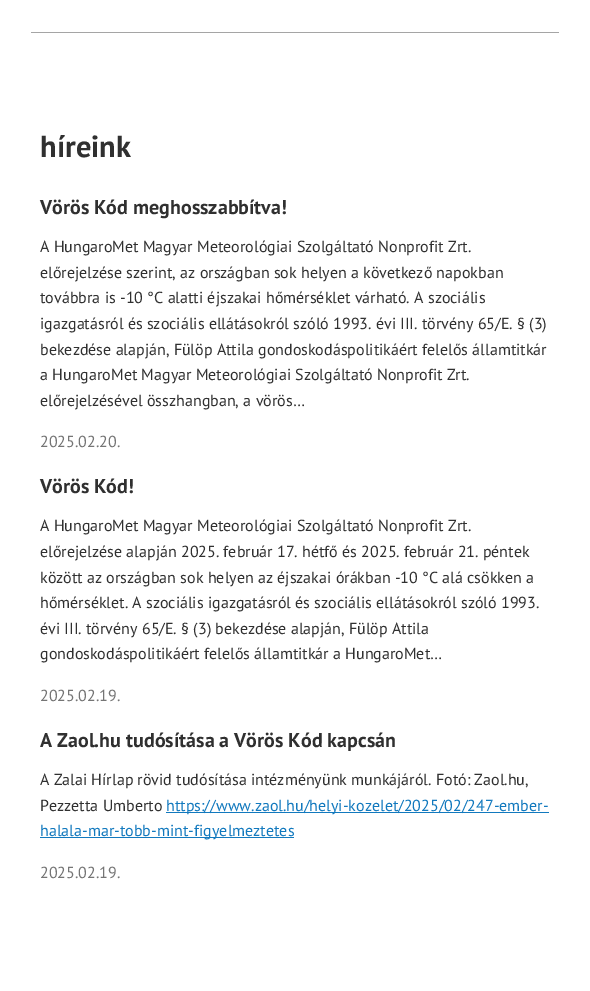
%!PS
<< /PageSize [590 991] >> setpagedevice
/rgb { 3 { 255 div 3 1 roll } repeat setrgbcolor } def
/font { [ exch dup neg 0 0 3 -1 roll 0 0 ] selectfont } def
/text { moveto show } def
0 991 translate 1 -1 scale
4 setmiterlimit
255 255 255 rgb
0 0 590 991 rectfill
165 165 165 rgb
31 32 528 1 rectfill
18 121 190 rgb
166 812 383 1 rectfill
40 837 254 1 rectfill
/PTSans-Bold 30.5 font
48 48 48 rgb
(híreink) 40 157 text
/PTSans-Bold 20 font
(Vörös Kód meghosszabbítva!) 40 214 text
/PTSans-Regular 16 font
(A HungaroMet Magyar Meteorológiai Szolgáltató Nonprofit Zrt.) 40 252 text
(előrejelzése szerint, az országban sok helyen a következő napokban) 40 278 text
(továbbra is -10 °C alatti éjszakai hőmérséklet várható. A szociális) 40 303 text
(igazgatásról és szociális ellátásokról szóló 1993. évi III. törvény 65/E. § \(3\)) 40 329 text
(bekezdése alapján, Fülöp Attila gondoskodáspolitikáért felelős államtitkár) 40 355 text
(a HungaroMet Magyar Meteorológiai Szolgáltató Nonprofit Zrt.) 40 380 text
(előrejelzésével összhangban, a vörös…) 40 406 text
117 117 117 rgb
(2025.02.20.) 40 447 text
/PTSans-Bold 20 font
48 48 48 rgb
(Vörös Kód!) 40 493 text
/PTSans-Regular 16 font
(A HungaroMet Magyar Meteorológiai Szolgáltató Nonprofit Zrt.) 40 531 text
(előrejelzése alapján 2025. február 17. hétfő és 2025. február 21. péntek) 40 557 text
(között az országban sok helyen az éjszakai órákban -10 °C alá csökken a) 40 583 text
(hőmérséklet. A szociális igazgatásról és szociális ellátásokról szóló 1993.) 40 608 text
(évi III. törvény 65/E. § \(3\) bekezdése alapján, Fülöp Attila) 40 634 text
(gondoskodáspolitikáért felelős államtitkár a HungaroMet…) 40 659 text
117 117 117 rgb
(2025.02.19.) 40 701 text
/PTSans-Bold 20 font
48 48 48 rgb
(A Zaol.hu tudósítása a Vörös Kód kapcsán) 40 747 text
/PTSans-Regular 16 font
(A Zalai Hírlap rövid tudósítása intézményünk munkájáról. Fotó: Zaol.hu,) 40 785 text
(Pezzetta Umberto) 40 811 text
18 121 190 rgb
(https://www.zaol.hu/helyi-kozelet/2025/02/247-ember-) 166 811 text
(halala-mar-tobb-mint-figyelmeztetes) 40 836 text
117 117 117 rgb
(2025.02.19.) 40 878 text
showpage
